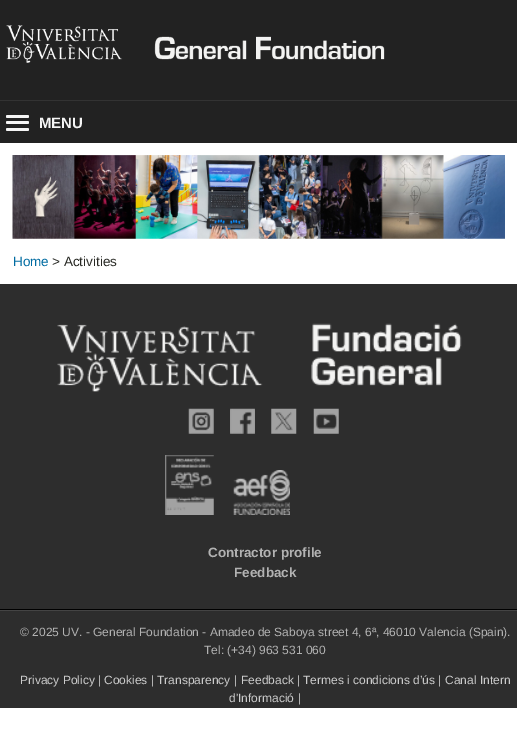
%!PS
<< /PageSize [517 749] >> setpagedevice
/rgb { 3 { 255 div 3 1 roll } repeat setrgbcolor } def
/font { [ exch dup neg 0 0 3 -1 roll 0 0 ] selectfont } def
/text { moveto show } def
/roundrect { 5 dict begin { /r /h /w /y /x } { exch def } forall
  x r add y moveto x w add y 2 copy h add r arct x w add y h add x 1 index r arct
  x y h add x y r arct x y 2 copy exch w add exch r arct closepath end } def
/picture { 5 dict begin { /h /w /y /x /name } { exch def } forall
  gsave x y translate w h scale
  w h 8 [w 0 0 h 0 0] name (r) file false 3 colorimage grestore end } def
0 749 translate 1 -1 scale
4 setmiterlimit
255 255 255 rgb
0 0 517 749 rectfill
34 34 34 rgb
0 0 517 100 rectfill
(img_01.rgb) 6 25 379 38 picture
0 101 517 42 rectfill
51 51 51 rgb
0 100 517 1 rectfill
245 245 245 rgb
6 115 23 3 1.5 roundrect fill
6 121 23 3 1.5 roundrect fill
6 128 23 3 1.5 roundrect fill
(img_02.rgb) 12 155 493 84 picture
45 45 45 rgb
0 284 517 424 rectfill
(img_03.rgb) 57 323 405 69 picture
(img_04.rgb) 188 408 26 26 picture
(img_05.rgb) 230 408 25 26 picture
(img_06.rgb) 271 408 26 26 picture
(img_07.rgb) 313 408 26 26 picture
(img_08.rgb) 165 455 49 60 picture
(img_09.rgb) 233 470 57 45 picture
0 0 0 rgb
0 609 517 1 rectfill
68 68 68 rgb
0 610 517 1 rectfill
/LiberationSans-Bold 15 font
245 245 245 rgb
(MENU) 39 128 text
/LiberationSans-Regular 13.5 font
1 108 162 rgb
(Home) 13 266 text
41 42 37 rgb
(> Activities) 52 266 text
/LiberationSans-Bold 13.5 font
178 178 178 rgb
(Contractor profile) 208 557 text
(Feedback) 234 577 text
/LiberationSans-Regular 12 font
(© 2025 UV. - General Foundation - Amadeo de Saboya street 4, 6ª, 46010 Valencia \(Spain\).) 20 636 text
(Tel: \(+34\) 963 531 060) 204 654 text
204 204 204 rgb
(Privacy Policy) 20 684 text
178 178 178 rgb
(|) 98 684 text
204 204 204 rgb
(Cookies) 104 684 text
178 178 178 rgb
(|) 151 684 text
204 204 204 rgb
(Transparency) 157 684 text
178 178 178 rgb
(|) 234 684 text
204 204 204 rgb
(Feedback) 241 684 text
178 178 178 rgb
(|) 297 684 text
204 204 204 rgb
(Termes i condicions d’ús) 303 684 text
178 178 178 rgb
(|) 438 684 text
204 204 204 rgb
(Canal Intern) 445 684 text
(d'Informació) 229 702 text
178 178 178 rgb
(|) 298 702 text
showpage
